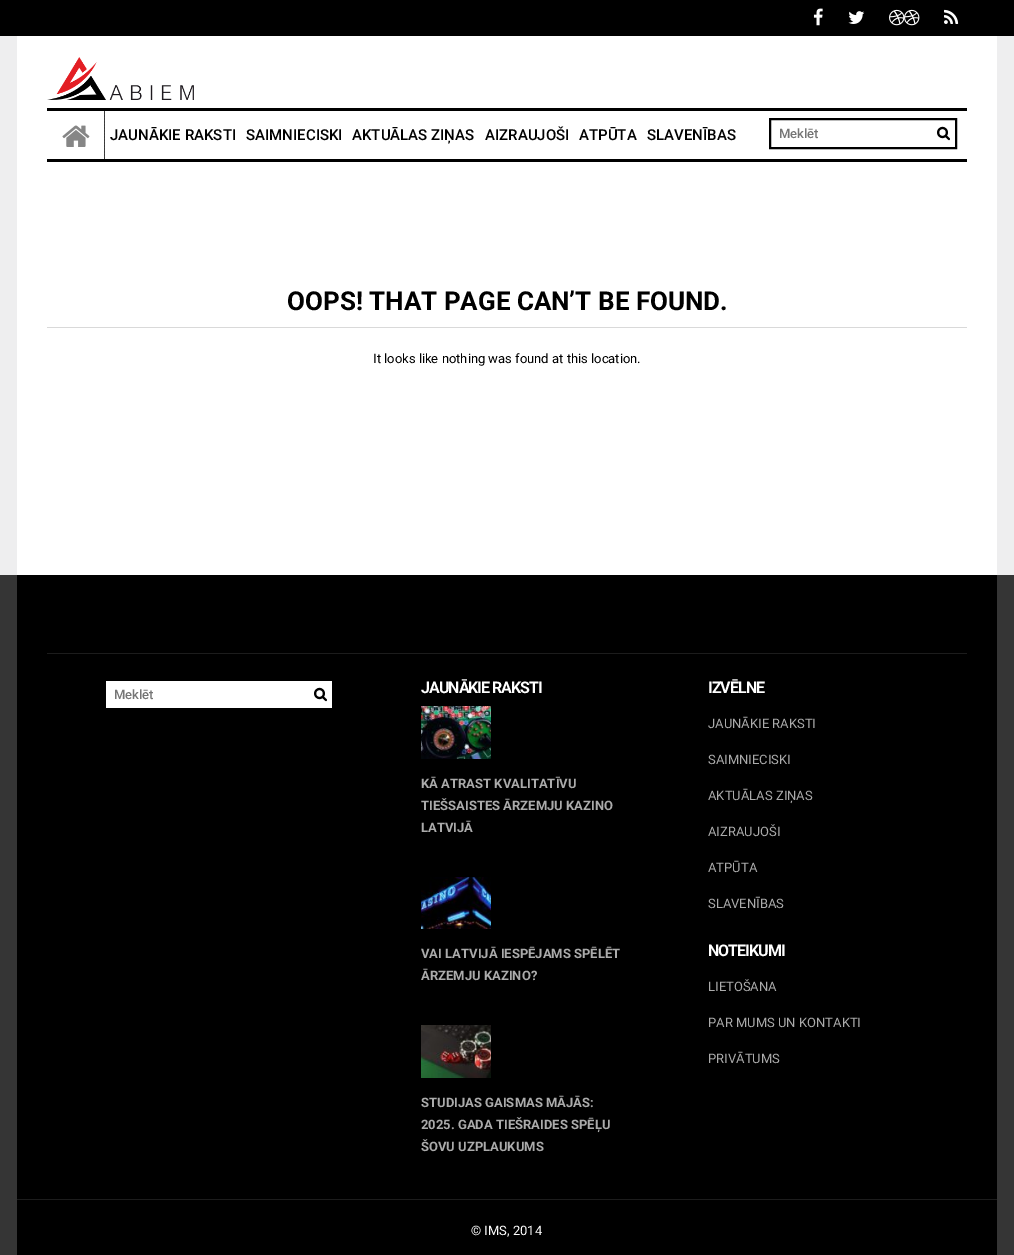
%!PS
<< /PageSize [1014 1255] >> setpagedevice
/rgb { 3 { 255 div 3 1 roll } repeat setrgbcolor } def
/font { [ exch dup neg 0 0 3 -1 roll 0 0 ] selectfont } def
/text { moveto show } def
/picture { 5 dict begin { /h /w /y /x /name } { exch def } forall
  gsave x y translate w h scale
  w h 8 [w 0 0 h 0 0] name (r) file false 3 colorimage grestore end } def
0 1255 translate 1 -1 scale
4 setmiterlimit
238 238 239 rgb
0 0 1014 1255 rectfill
0 0 0 rgb
0 0 1014 36 rectfill
(img_01.rgb) 813 8 10 18 picture
(img_02.rgb) 848 11 17 13 picture
(img_03.rgb) 889 9 16 17 picture
(img_04.rgb) 904 9 16 17 picture
(img_05.rgb) 944 9 15 15 picture
255 255 255 rgb
17 36 980 539 rectfill
0 0 0 rgb
47 108 920 3 rectfill
(img_06.rgb) 47 57 147 43 picture
47 159 920 3 rectfill
(img_07.rgb) 104 111 1 48 picture
(img_08.rgb) 62 125 28 22 picture
2 setlinewidth
770 119 186 29 rectstroke
(img_09.rgb) 937 126 13 15 picture
217 217 217 rgb
47 327 920 1 rectfill
53 53 53 rgb
0 575 1014 680 rectfill
0 0 0 rgb
17 575 980 680 rectfill
28 28 28 rgb
47 653 920 1 rectfill
255 255 255 rgb
106 681 226 27 rectfill
(img_09.rgb) 314 687 13 15 picture
(img_10.rgb) 421 706 70 53 picture
(img_11.rgb) 421 877 70 52 picture
(img_12.rgb) 421 1025 70 53 picture
28 28 28 rgb
17 1199 980 1 rectfill
/Roboto-Medium 15 font
0 0 0 rgb
(JAUNĀKIE RAKSTI) 110 140 text
(SAIMNIECISKI) 246 140 text
(AKTUĀLAS ZIŅAS) 352 140 text
(AIZRAUJOŠI) 485 140 text
(ATPŪTA) 579 140 text
(SLAVENĪBAS) 647 140 text
/Roboto-Medium 13 font
117 117 117 rgb
(Meklēt) 779 138 text
/Roboto-Bold 26 font
0 0 0 rgb
(OOPS! THAT PAGE CAN’T BE FOUND.) 287 310 text
/Roboto-Regular 13 font
(It looks like nothing was found at this location.) 373 363 text
/Roboto-Medium 13 font
117 117 117 rgb
(Meklēt) 114 699 text
/Roboto-Bold 16 font
255 255 255 rgb
421 693 moveto -1 0 (JAUNĀKIE RAKSTI) ashow
/Roboto-Bold 13 font
171 171 171 rgb
(KĀ ATRAST KVALITATĪVU) 421 788 text
(TIEŠSAISTES ĀRZEMJU KAZINO) 421 810 text
(LATVIJĀ) 421 832 text
(VAI LATVIJĀ IESPĒJAMS SPĒLĒT) 421 958 text
(ĀRZEMJU KAZINO?) 421 980 text
(STUDIJAS GAISMAS MĀJĀS:) 421 1107 text
(2025. GADA TIEŠRAIDES SPĒĻU) 421 1129 text
(ŠOVU UZPLAUKUMS) 421 1151 text
/Roboto-Bold 16 font
255 255 255 rgb
708 693 moveto -1 0 (IZVĒLNE) ashow
/Roboto-Regular 13 font
171 171 171 rgb
(JAUNĀKIE RAKSTI) 708 728 text
(SAIMNIECISKI) 708 764 text
(AKTUĀLAS ZIŅAS) 708 800 text
(AIZRAUJOŠI) 708 836 text
(ATPŪTA) 708 872 text
(SLAVENĪBAS) 708 908 text
/Roboto-Bold 16 font
255 255 255 rgb
708 956 moveto -1 0 (NOTEIKUMI) ashow
/Roboto-Regular 13 font
171 171 171 rgb
(LIETOŠANA) 708 991 text
(PAR MUMS UN KONTAKTI) 708 1027 text
(PRIVĀTUMS) 708 1063 text
255 255 255 rgb
(© IMS, 2014) 471 1235 text
showpage
